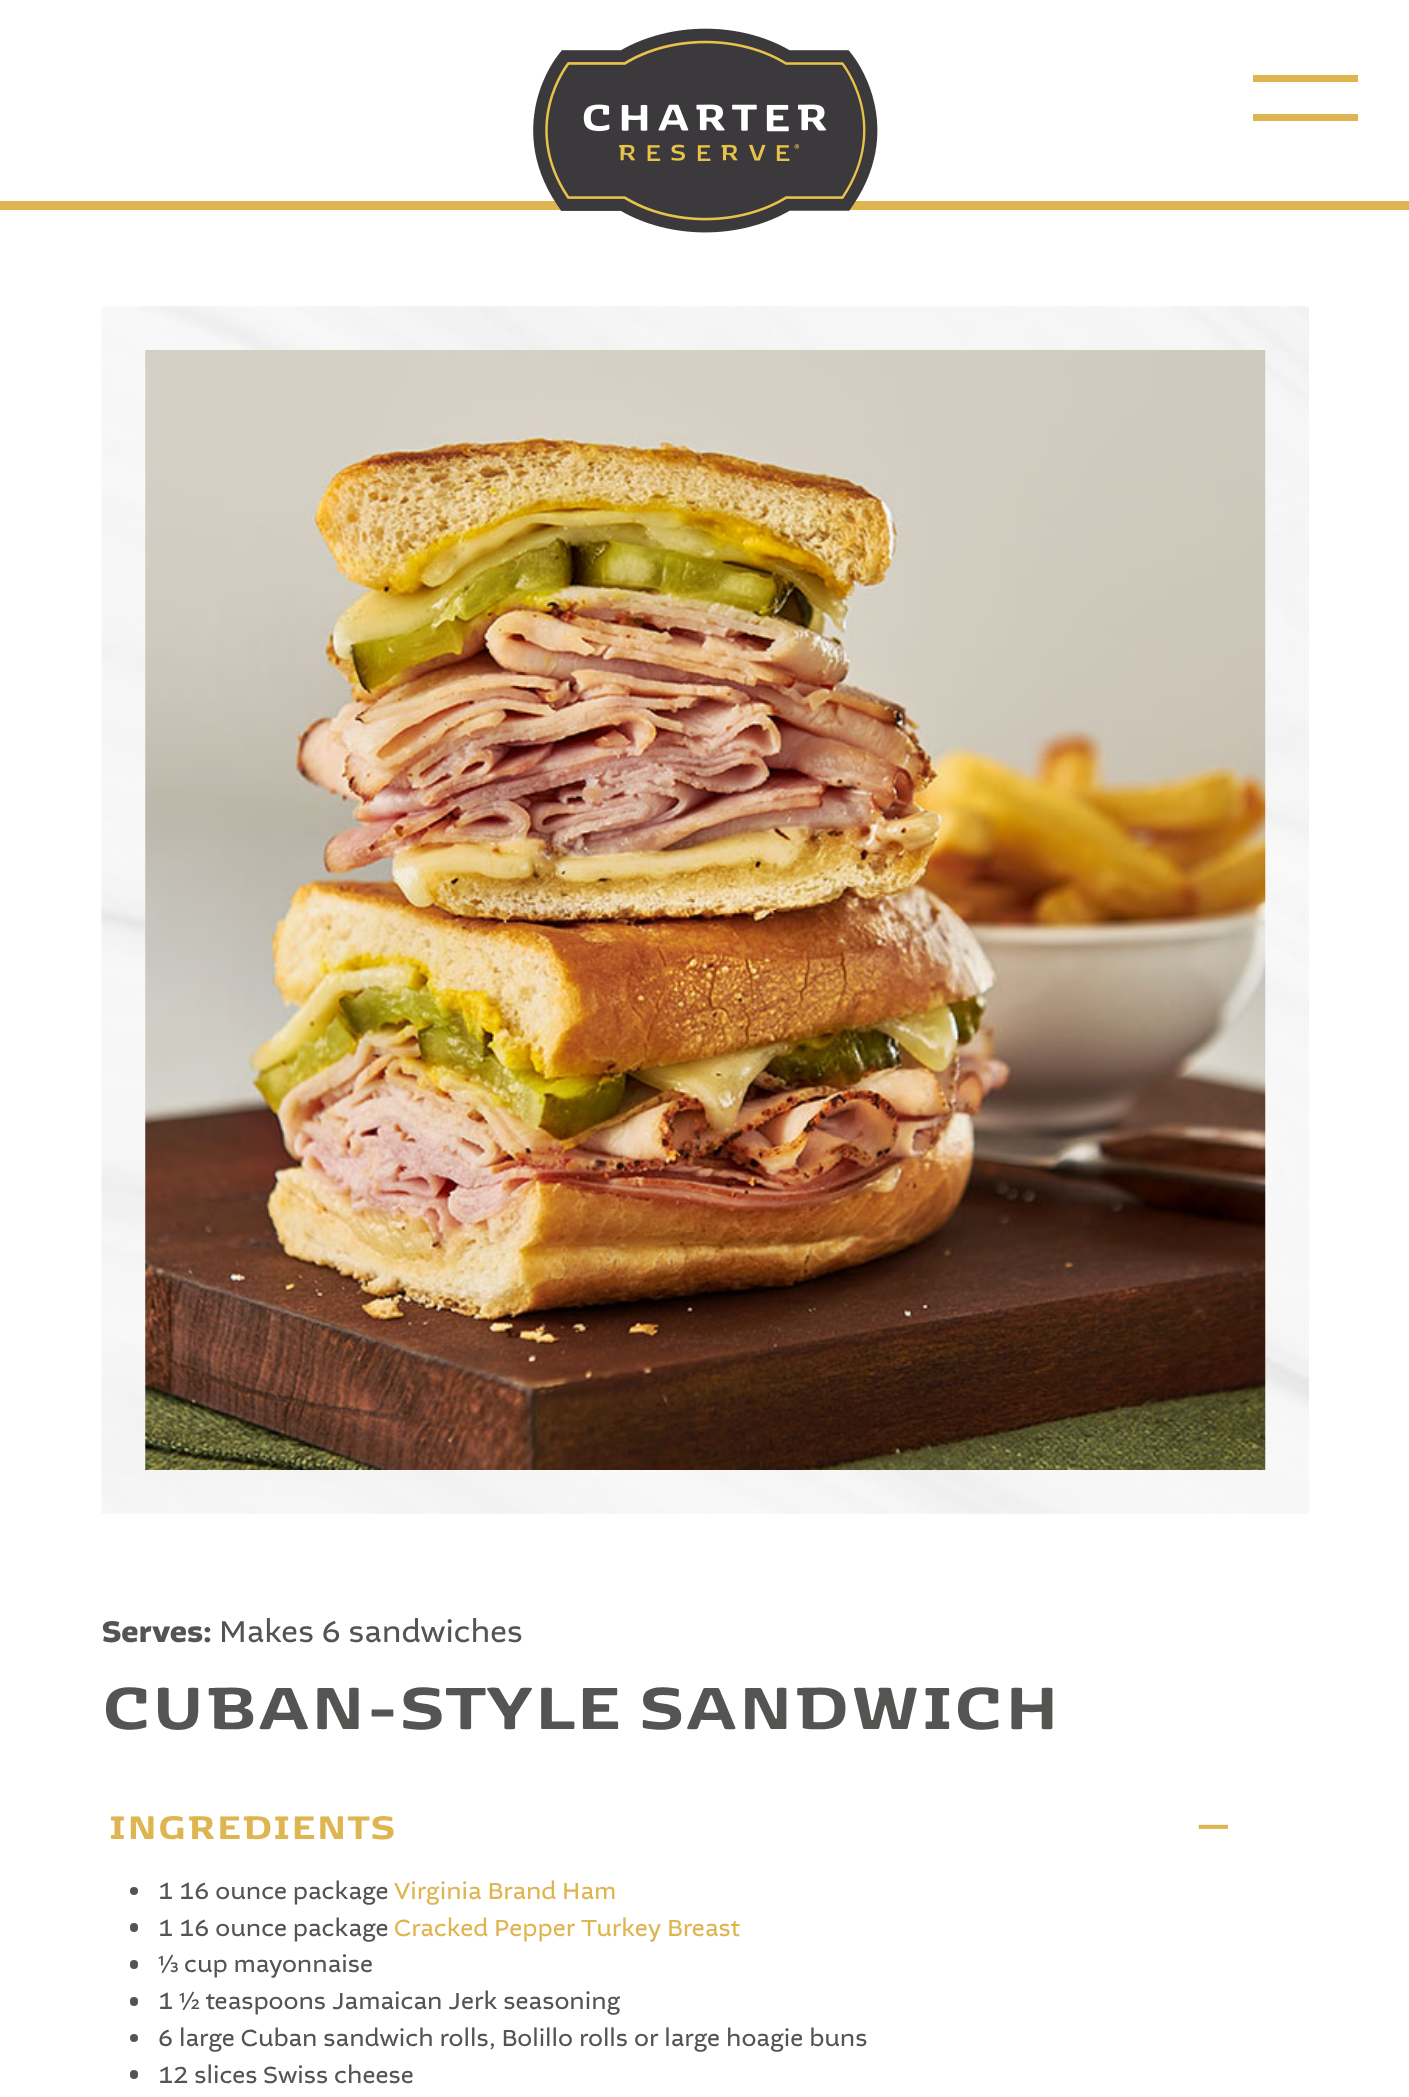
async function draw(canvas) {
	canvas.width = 1409;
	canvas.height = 2097;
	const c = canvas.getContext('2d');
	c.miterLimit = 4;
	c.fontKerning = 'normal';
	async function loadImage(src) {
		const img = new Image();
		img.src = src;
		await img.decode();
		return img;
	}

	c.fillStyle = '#fff';
	c.fillRect(0, 0, 1409, 2097);
	c.fillStyle = '#deb550';
	c.fillRect(0, 201, 1409, 9);
	c.drawImage(await loadImage('img1.png'), 533, 28, 345, 205);
	c.fillRect(1253, 75, 105, 7);
	c.fillRect(1253, 114, 105, 7);
	c.drawImage(await loadImage('img2.png'), 101, 306, 1208, 1208);
	c.drawImage(await loadImage('img3.png'), 145, 350, 1121, 1120);
	c.font = 'bold 31.5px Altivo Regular';
	c.fillStyle = '#545452';
	c.fillText('Serves:', 102, 1642);
	c.font = '31.5px Altivo Regular';
	c.fillText('Makes 6 sandwiches', 219, 1642);
	c.letterSpacing = '2.1px';
	c.font = '800 70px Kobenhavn';
	c.fillText('CUBAN-STYLE SANDWICH', 102, 1729);
	c.letterSpacing = '1.25px';
	c.font = '800 38.5px Kobenhavn';
	c.fillStyle = '#deb550';
	c.fillText('INGREDIENTS', 109, 1839);
	c.letterSpacing = '0px';
	c.font = '56px Altivo Regular';
	c.fillText('–', 1196, 1843);
	c.fillStyle = '#545452';
	c.beginPath();
	c.arc(134, 1891, 4, 0, 2 * Math.PI);
	c.fill();
	c.font = '24.5px Altivo Regular';
	c.fillText('1 16 ounce package', 158, 1899);
	c.fillStyle = '#deb550';
	c.fillText('Virginia Brand Ham', 394, 1899);
	c.fillStyle = '#545452';
	c.beginPath();
	c.roundRect(130, 1923, 8, 9, 4);
	c.fill();
	c.fillText('1 16 ounce package', 158, 1936);
	c.fillStyle = '#deb550';
	c.fillText('Cracked Pepper Turkey Breast', 394, 1936);
	c.fillStyle = '#545452';
	c.beginPath();
	c.roundRect(130, 1960, 8, 9, 4);
	c.fill();
	c.font = '24.5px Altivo';
	c.fillText('⅓', 158, 1972);
	c.font = '24.5px Altivo Regular';
	c.fillText('cup mayonnaise', 184, 1972);
	c.beginPath();
	c.roundRect(130, 1997, 8, 9, 4);
	c.fill();
	c.fillText('1 ½ teaspoons Jamaican Jerk seasoning', 158, 2009);
	c.beginPath();
	c.arc(134, 2038, 4, 0, 2 * Math.PI);
	c.fill();
	c.fillText('6 large Cuban sandwich rolls, Bolillo rolls or large hoagie buns', 158, 2046);
	c.beginPath();
	c.roundRect(130, 2070, 8, 9, 4);
	c.fill();
	c.fillText('12 slices Swiss cheese', 158, 2083);
}

draw(document.querySelector('canvas'));
